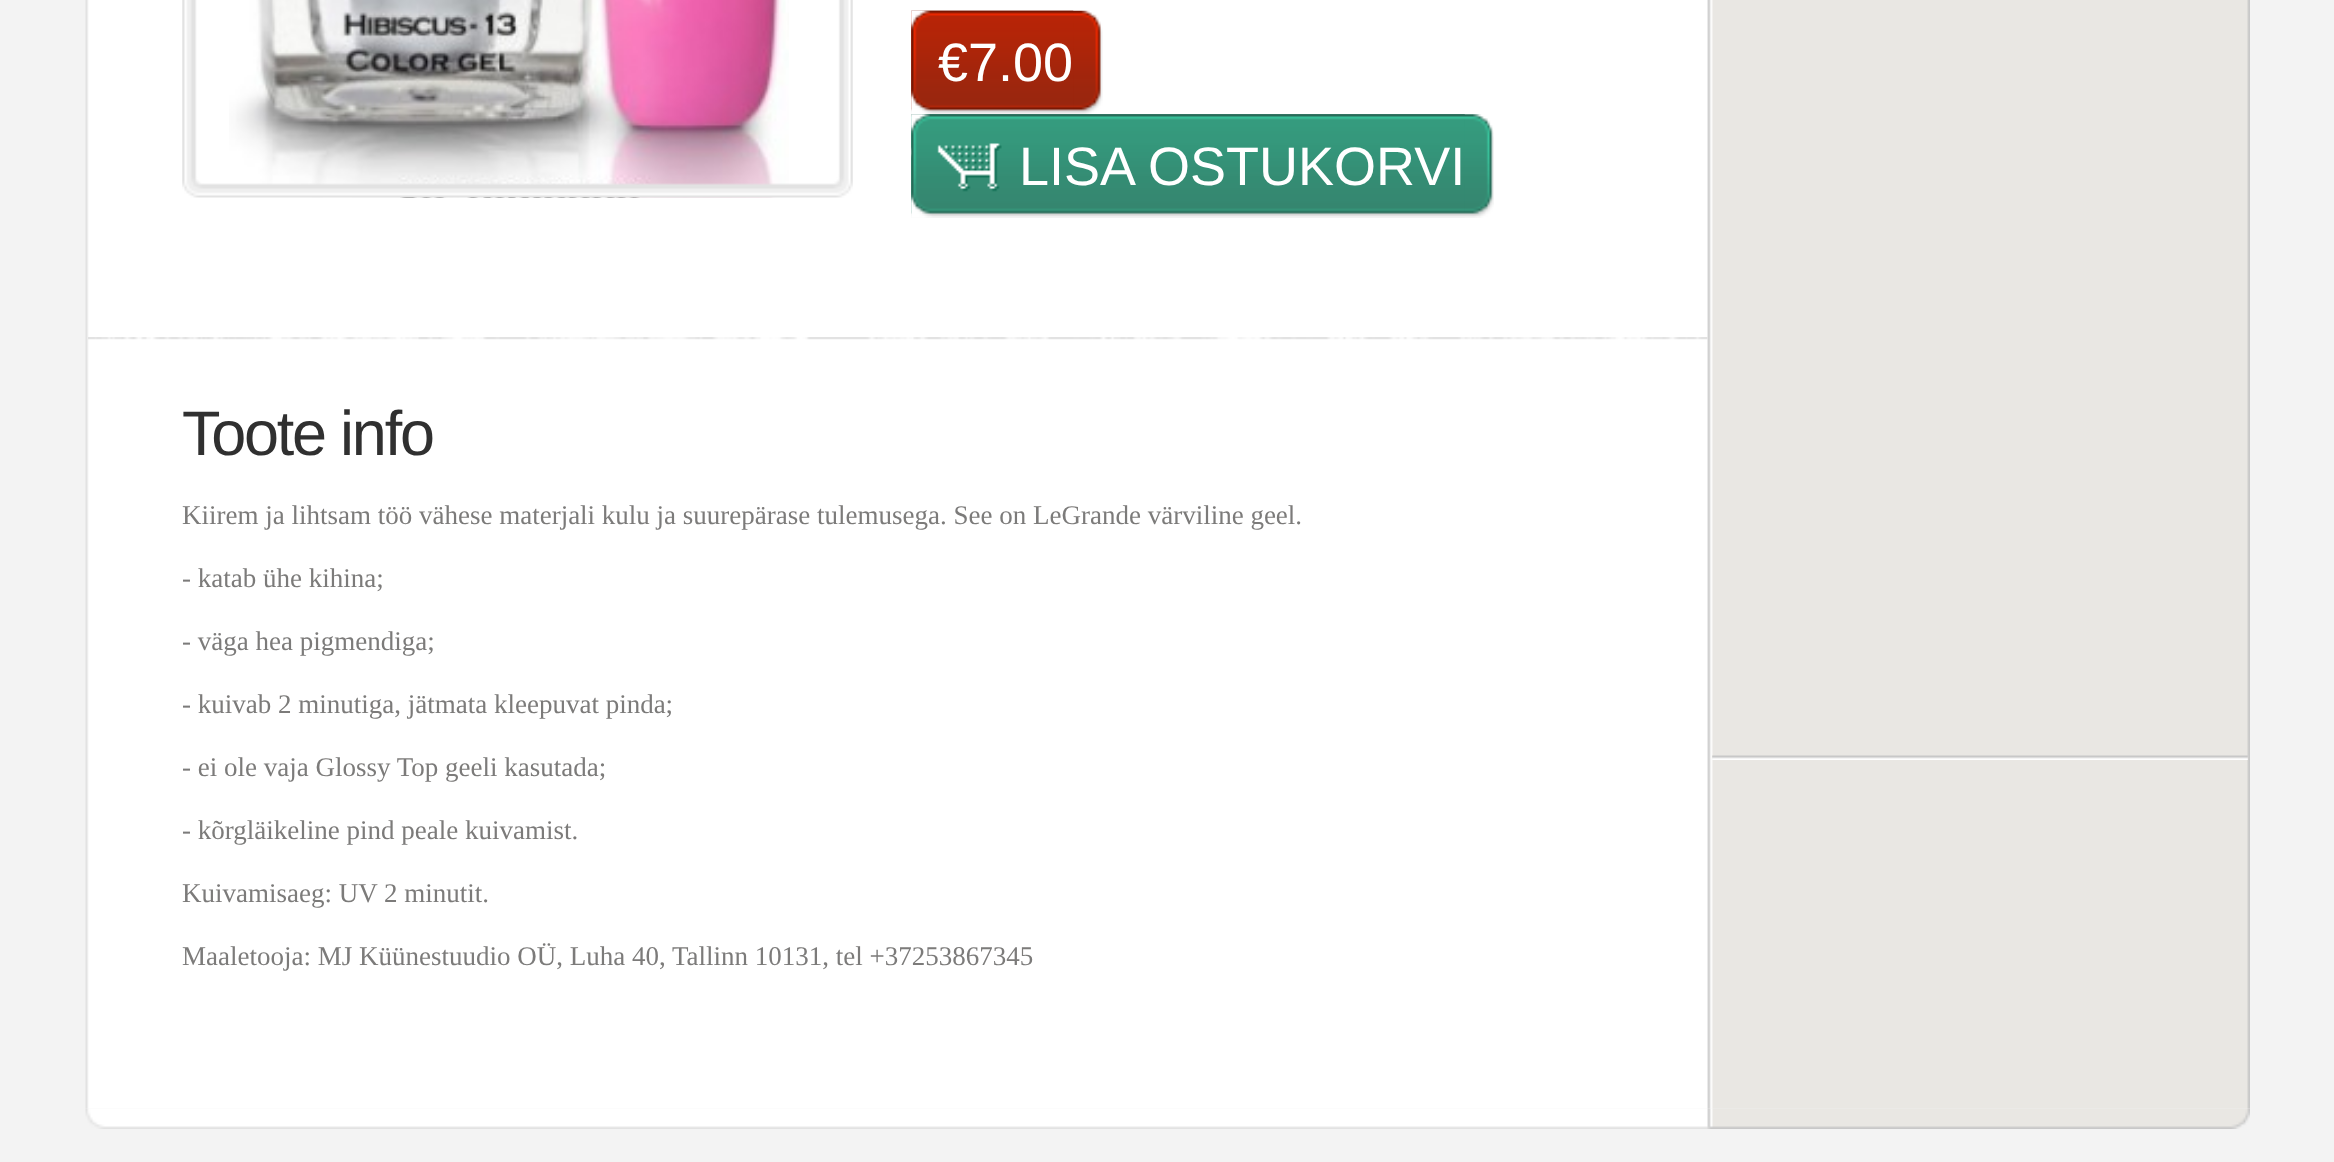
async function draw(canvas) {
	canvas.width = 2334;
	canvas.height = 1162;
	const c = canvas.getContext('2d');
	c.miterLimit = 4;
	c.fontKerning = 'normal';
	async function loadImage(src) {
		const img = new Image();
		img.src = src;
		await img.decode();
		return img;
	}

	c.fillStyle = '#f3f3f3';
	c.fillRect(0, 0, 2334, 1162);
	c.drawImage(await loadImage('img1.png'), 85, 0, 2165, 1109);
	c.drawImage(await loadImage('img3.png'), 229, 0, 560, 198);
	c.drawImage(await loadImage('img2.png'), 182, 0, 671, 198);
	c.drawImage(await loadImage('img4.png'), 911, 10, 192, 105);
	c.drawImage(await loadImage('img5.png'), 911, 10, 163, 104);
	c.font = '54px Liberation Sans';
	c.fillStyle = '#fff';
	c.fillText('€7.00', 938, 81);
	c.drawImage(await loadImage('img6.png'), 911, 114, 583, 104);
	c.drawImage(await loadImage('img7.png'), 911, 114, 554, 104);
	c.fillText('LISA OSTUKORVI', 1019, 185);
	c.drawImage(await loadImage('img8.png'), 88, 337, 1620, 3);
	c.letterSpacing = '-2.25px';
	c.font = '63px Liberation Sans';
	c.fillStyle = '#303030';
	c.fillText('Toote info', 182, 455);
	c.letterSpacing = '0px';
	c.font = '27px Liberation Serif';
	c.fillStyle = '#7c7b7a';
	for (const [text, x, y] of [
		['Kiirem ja lihtsam töö vähese materjali kulu ja suurepärase tulemusega. See on LeGrande värviline geel.', 182, 524],
		['- katab ühe kihina;', 182, 587],
		['- väga hea pigmendiga;', 182, 650],
		['- kuivab 2 minutiga, jätmata kleepuvat pinda;', 182, 713],
		['- ei ole vaja Glossy Top geeli kasutada;', 182, 776],
		['- kõrgläikeline pind peale kuivamist.', 182, 839],
		['Kuivamisaeg: UV 2 minutit.', 182, 902],
		['Maaletooja: MJ Küünestuudio OÜ, Luha 40, Tallinn 10131, tel +37253867345', 182, 965],
	]) {
		c.fillText(text, x, y);
	}
	c.drawImage(await loadImage('img9.png'), 1712, 755, 536, 5);
	c.drawImage(await loadImage('img10.png'), 85, 1109, 2165, 20);
}

draw(document.querySelector('canvas'));
